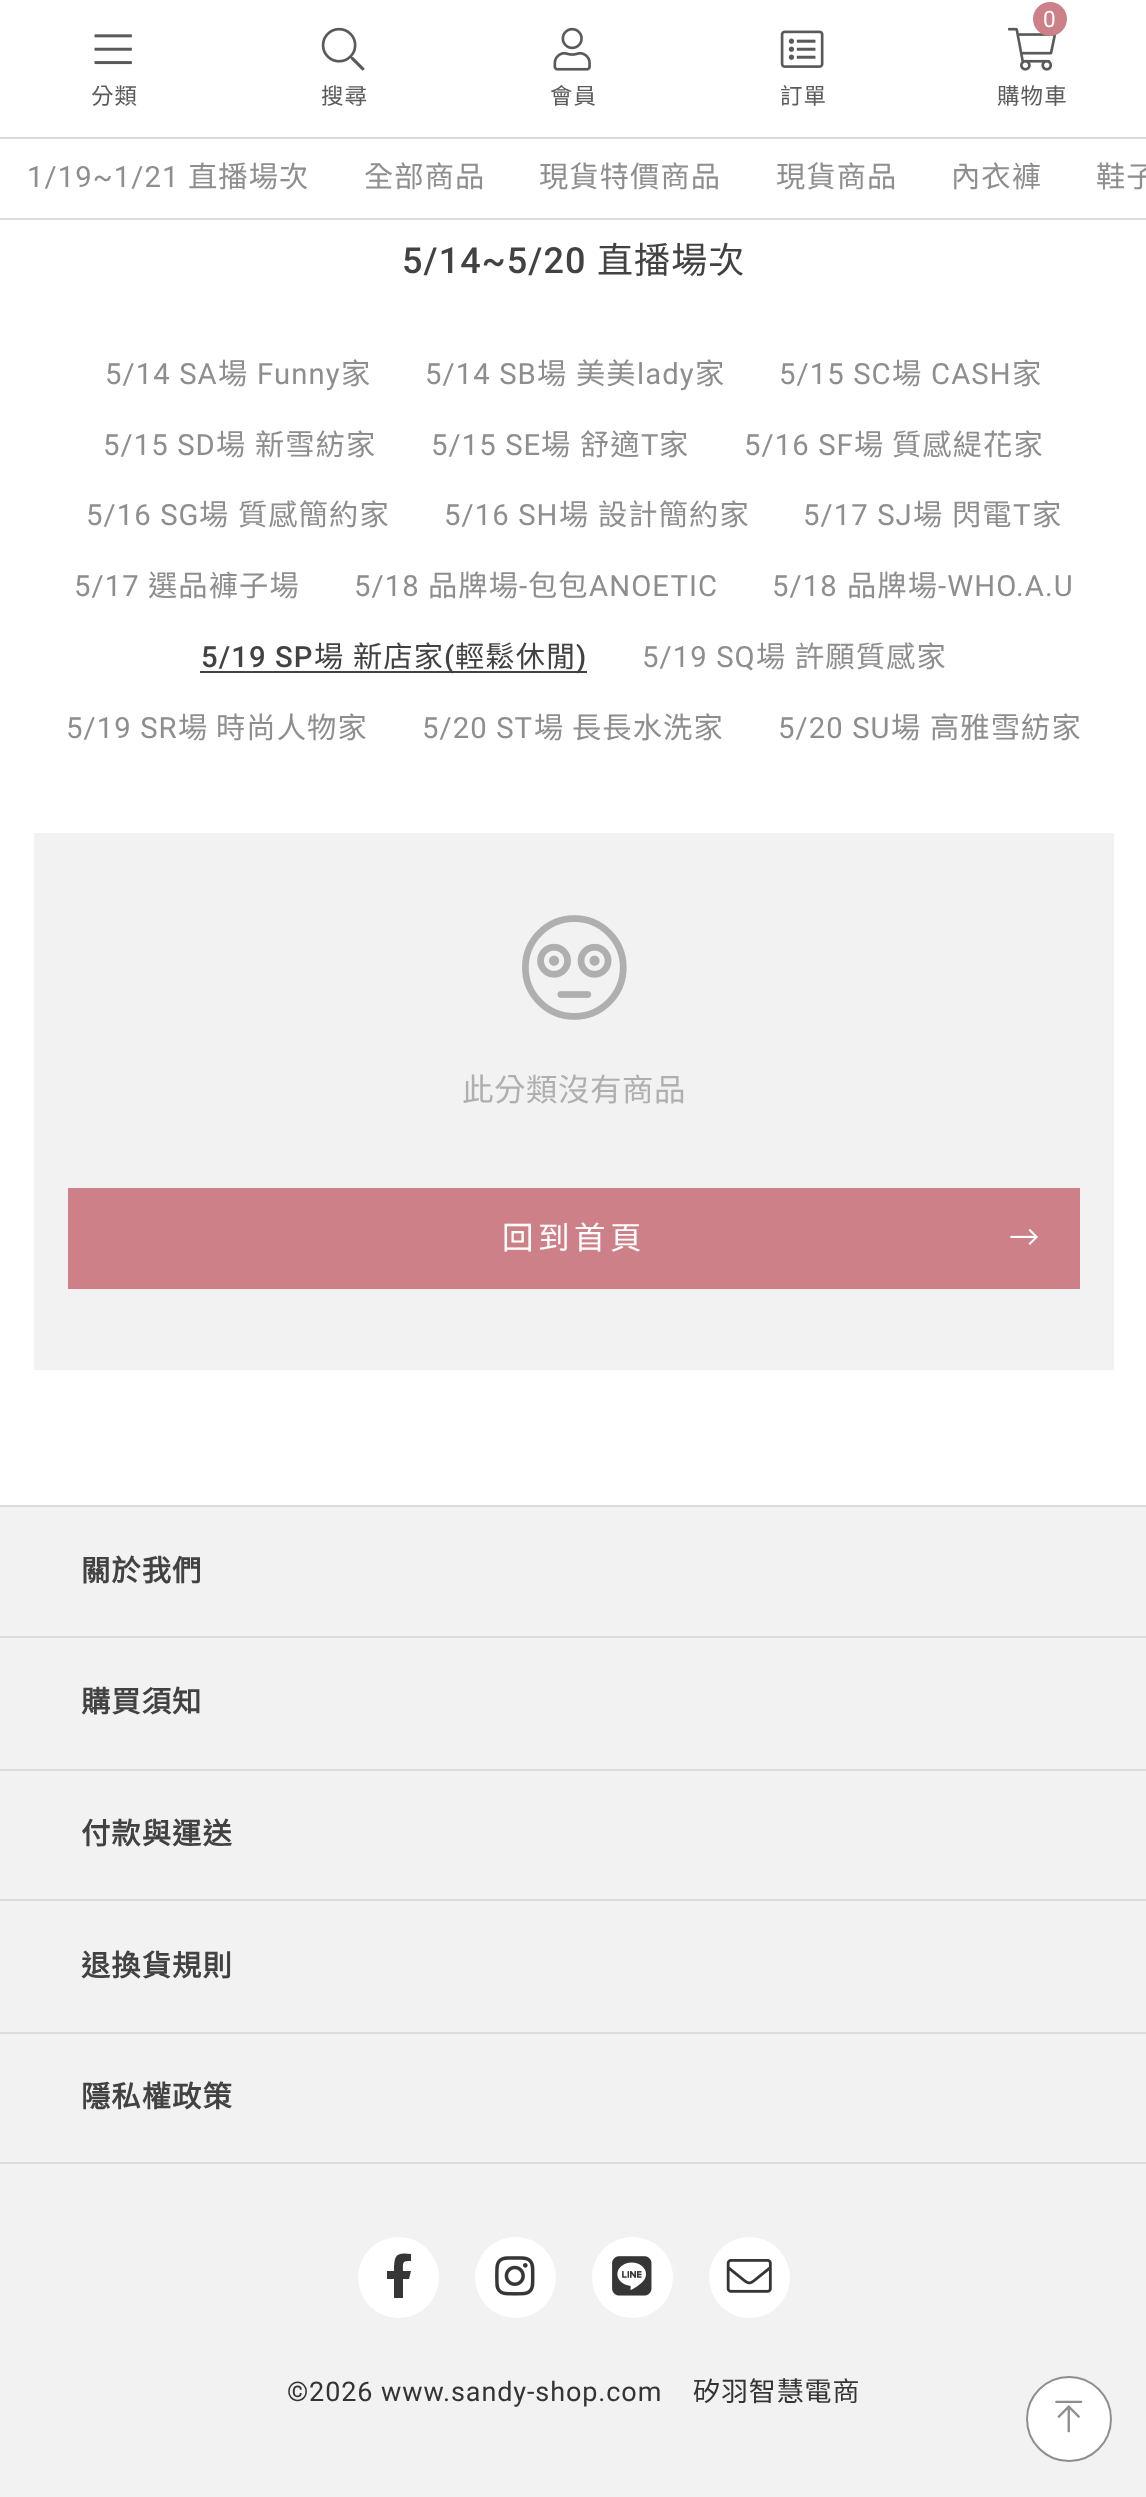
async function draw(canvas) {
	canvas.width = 1146;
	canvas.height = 2497;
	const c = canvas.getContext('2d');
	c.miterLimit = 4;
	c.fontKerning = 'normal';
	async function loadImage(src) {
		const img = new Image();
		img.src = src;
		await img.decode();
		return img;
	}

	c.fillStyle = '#fff';
	c.fillRect(0, 0, 1146, 2497);
	c.fillStyle = '#dbdbdb';
	c.fillRect(0, 137, 1146, 2);
	c.drawImage(await loadImage('img1.png'), 94, 34, 38, 31);
	c.letterSpacing = '1.1px';
	c.font = '22.5px Noto Sans CJK TC';
	c.fillStyle = '#5b5b5b';
	c.fillText('分類', 91, 104);
	c.drawImage(await loadImage('img2.png'), 321, 27, 44, 44);
	c.fillText('搜尋', 321, 104);
	c.drawImage(await loadImage('img3.png'), 553, 27, 38, 44);
	c.fillText('會員', 550, 104);
	c.drawImage(await loadImage('img4.png'), 780, 30, 44, 38);
	c.fillText('訂單', 780, 104);
	c.drawImage(await loadImage('img5.png'), 1008, 27, 48, 44);
	c.fillStyle = '#cd8088';
	c.beginPath();
	c.arc(1050, 19, 17, 0, 2 * Math.PI);
	c.fill();
	c.font = '22.5px Roboto';
	c.fillStyle = '#fff';
	c.fillText('0', 1043, 27);
	c.font = '22.5px Noto Sans CJK TC';
	c.fillStyle = '#5b5b5b';
	c.fillText('購物車', 997, 104);
	c.fillStyle = '#dbdbdb';
	c.fillRect(0, 218, 1146, 2);
	c.font = '29.25px Roboto';
	c.fillStyle = '#8e8e8e';
	c.fillText('1/19~1/21', 27, 187);
	c.font = '29.25px Noto Sans CJK TC';
	for (const [text, x, y] of [
		['直播場次', 188, 187],
		['全部商品', 364, 187],
		['現貨特價商品', 539, 187],
		['現貨商品', 776, 187],
		['內衣褲', 951, 187],
		['鞋子', 1096, 187],
	]) {
		c.fillText(text, x, y);
	}
	c.font = '500 36px Roboto';
	c.fillStyle = '#424242';
	c.fillText('5/14~5/20', 402, 273);
	c.font = '36px Noto Sans CJK TC';
	c.fillText('直播場次', 597, 273);
	c.font = '29.25px Roboto';
	c.fillStyle = '#8e8e8e';
	c.fillText('5/14 SA', 105, 384);
	c.font = '29.25px Noto Sans CJK TC';
	c.fillText('場', 218, 384);
	c.font = '29.25px Roboto';
	c.fillText('Funny', 257, 384);
	c.font = '29.25px Noto Sans CJK TC';
	c.fillText('家', 341, 384);
	c.font = '29.25px Roboto';
	c.fillText('5/14 SB', 425, 384);
	c.font = '29.25px Noto Sans CJK TC';
	c.fillText('場', 537, 384);
	c.fillText('美美', 576, 384);
	c.font = '29.25px Roboto';
	c.fillText('lady', 637, 384);
	c.font = '29.25px Noto Sans CJK TC';
	c.fillText('家', 695, 384);
	c.font = '29.25px Roboto';
	c.fillText('5/15 SC', 779, 384);
	c.font = '29.25px Noto Sans CJK TC';
	c.fillText('場', 892, 384);
	c.font = '29.25px Roboto';
	c.fillText('CASH', 931, 384);
	c.font = '29.25px Noto Sans CJK TC';
	c.fillText('家', 1012, 384);
	c.font = '29.25px Roboto';
	c.fillText('5/15 SD', 103, 455);
	c.font = '29.25px Noto Sans CJK TC';
	c.fillText('場', 216, 455);
	c.fillText('新雪紡家', 255, 455);
	c.font = '29.25px Roboto';
	c.fillText('5/15 SE', 431, 455);
	c.font = '29.25px Noto Sans CJK TC';
	c.fillText('場', 541, 455);
	c.fillText('舒適', 580, 455);
	c.font = '29.25px Roboto';
	c.fillText('T', 641, 455);
	c.font = '29.25px Noto Sans CJK TC';
	c.fillText('家', 659, 455);
	c.font = '29.25px Roboto';
	c.fillText('5/16 SF', 744, 455);
	c.font = '29.25px Noto Sans CJK TC';
	c.fillText('場', 854, 455);
	c.fillText('質感緹花家', 892, 455);
	c.font = '29.25px Roboto';
	c.fillText('5/16 SG', 86, 525);
	c.font = '29.25px Noto Sans CJK TC';
	c.fillText('場', 199, 525);
	c.fillText('質感簡約家', 238, 525);
	c.font = '29.25px Roboto';
	c.fillText('5/16 SH', 444, 525);
	c.font = '29.25px Noto Sans CJK TC';
	c.fillText('場', 559, 525);
	c.fillText('設計簡約家', 598, 525);
	c.font = '29.25px Roboto';
	c.fillText('5/17 SJ', 803, 525);
	c.font = '29.25px Noto Sans CJK TC';
	c.fillText('場', 913, 525);
	c.fillText('閃電', 952, 525);
	c.font = '29.25px Roboto';
	c.fillText('T', 1013, 525);
	c.font = '29.25px Noto Sans CJK TC';
	c.fillText('家', 1032, 525);
	c.font = '29.25px Roboto';
	c.fillText('5/17', 74, 596);
	c.font = '29.25px Noto Sans CJK TC';
	c.fillText('選品褲子場', 148, 596);
	c.font = '29.25px Roboto';
	c.fillText('5/18', 354, 596);
	c.font = '29.25px Noto Sans CJK TC';
	c.fillText('品牌場', 428, 596);
	c.font = '29.25px Roboto';
	c.fillText('-', 519, 596);
	c.font = '29.25px Noto Sans CJK TC';
	c.fillText('包包', 528, 596);
	c.font = '29.25px Roboto';
	c.fillText('ANOETIC', 589, 596);
	c.fillText('5/18', 772, 596);
	c.font = '29.25px Noto Sans CJK TC';
	c.fillText('品牌場', 847, 596);
	c.font = '29.25px Roboto';
	c.fillText('-WHO.A.U', 938, 596);
	c.font = '500 29.25px Roboto';
	c.fillStyle = '#424242';
	c.fillText('5/19 SP', 201, 667);
	c.font = '29.25px Noto Sans CJK TC';
	c.fillText('場', 314, 667);
	c.fillText('新店家', 353, 667);
	c.fillRect(200, 671, 387, 2);
	c.font = '500 29.25px Roboto';
	c.fillText('(', 444, 667);
	c.font = '29.25px Noto Sans CJK TC';
	c.fillText('輕鬆休閒', 455, 667);
	c.font = '500 29.25px Roboto';
	c.fillText(')', 576, 667);
	c.font = '29.25px Roboto';
	c.fillStyle = '#8e8e8e';
	c.fillText('5/19 SQ', 642, 667);
	c.font = '29.25px Noto Sans CJK TC';
	c.fillText('場', 756, 667);
	c.fillText('許願質感家', 795, 667);
	c.font = '29.25px Roboto';
	c.fillText('5/19 SR', 66, 738);
	c.font = '29.25px Noto Sans CJK TC';
	c.fillText('場', 178, 738);
	c.fillText('時尚人物家', 216, 738);
	c.font = '29.25px Roboto';
	c.fillText('5/20 ST', 422, 738);
	c.font = '29.25px Noto Sans CJK TC';
	c.fillText('場', 534, 738);
	c.fillText('長長水洗家', 572, 738);
	c.font = '29.25px Roboto';
	c.fillText('5/20 SU', 778, 738);
	c.font = '29.25px Noto Sans CJK TC';
	c.fillText('場', 891, 738);
	c.fillText('高雅雪紡家', 930, 738);
	c.fillStyle = '#f2f2f2';
	c.fillRect(34, 833, 1080, 537);
	c.drawImage(await loadImage('img6.png'), 522, 915, 105, 105);
	c.letterSpacing = '0.5px';
	c.font = '31.5px Noto Sans CJK TC';
	c.fillStyle = '#afafaf';
	c.fillText('此分類沒有商品', 462, 1101);
	c.fillStyle = '#cd8088';
	c.fillRect(68, 1188, 1012, 101);
	c.letterSpacing = '4.5px';
	c.fillStyle = '#fff';
	c.fillText('回到首頁', 502, 1249);
	c.drawImage(await loadImage('img7.png'), 1010, 1229, 28, 16);
	c.fillStyle = '#f2f2f2';
	c.fillRect(0, 1507, 1146, 990);
	c.fillStyle = '#dbdbdb';
	c.fillRect(0, 1505, 1146, 2);
	c.letterSpacing = '1.1px';
	c.font = 'bold 29.25px Noto Sans CJK TC';
	c.fillStyle = '#424242';
	c.fillText('關於我們', 81, 1581);
	c.fillStyle = '#dbdbdb';
	c.fillRect(0, 1636, 1146, 2);
	c.fillStyle = '#424242';
	c.fillText('購買須知', 81, 1712);
	c.fillStyle = '#dbdbdb';
	c.fillRect(0, 1769, 1146, 2);
	c.fillStyle = '#424242';
	c.fillText('付款與運送', 81, 1844);
	c.fillStyle = '#dbdbdb';
	c.fillRect(0, 1899, 1146, 2);
	c.fillStyle = '#424242';
	c.fillText('退換貨規則', 81, 1976);
	c.fillStyle = '#dbdbdb';
	c.fillRect(0, 2032, 1146, 2);
	c.fillRect(0, 2162, 1146, 2);
	c.fillStyle = '#424242';
	c.fillText('隱私權政策', 81, 2107);
	c.fillStyle = '#fff';
	c.beginPath();
	c.arc(398.5, 2277.5, 40.5, 0, 2 * Math.PI);
	c.fill();
	c.fillStyle = '#373636';
	c.beginPath();
	c.moveTo(409, 2279);
	c.lineTo(403, 2279);
	c.lineTo(403, 2298);
	c.lineTo(394, 2298);
	c.lineTo(394, 2279);
	c.lineTo(387, 2279);
	c.lineTo(387, 2271);
	c.lineTo(394, 2271);
	c.bezierCurveTo(394, 2255, 396, 2252, 411, 2254);
	c.lineTo(411, 2261);
	c.bezierCurveTo(402, 2261, 403, 2262, 403, 2271);
	c.lineTo(411, 2271);
	c.closePath();
	c.fill();
	c.fillStyle = '#fff';
	c.beginPath();
	c.arc(515.5, 2277.5, 40.5, 0, 2 * Math.PI);
	c.fill();
	c.drawImage(await loadImage('img8.png'), 495, 2256, 40, 40);
	c.beginPath();
	c.arc(632.5, 2277.5, 40.5, 0, 2 * Math.PI);
	c.fill();
	c.drawImage(await loadImage('img9.png'), 612, 2256, 40, 40);
	c.beginPath();
	c.arc(749.5, 2277.5, 40.5, 0, 2 * Math.PI);
	c.fill();
	c.drawImage(await loadImage('img10.png'), 726, 2259, 46, 34);
	c.letterSpacing = '0.9px';
	c.font = '27px Roboto';
	c.fillStyle = '#353434';
	c.fillText('©2026 www.sandy-shop.com', 287, 2401);
	c.font = '27px Noto Sans CJK TC';
	c.fillText('矽羽智慧電商', 693, 2401);
	c.fillStyle = '#fff';
	c.beginPath();
	c.arc(1069, 2419, 43, 0, 2 * Math.PI);
	c.fill();
	c.beginPath();
	c.arc(1069, 2419, 42, 0, 2 * Math.PI);
	c.strokeStyle = '#42424299';
	c.lineWidth = 2;
	c.stroke();
	c.drawImage(await loadImage('img11.png'), 1055, 2400, 28, 33);
}

draw(document.querySelector('canvas'));
